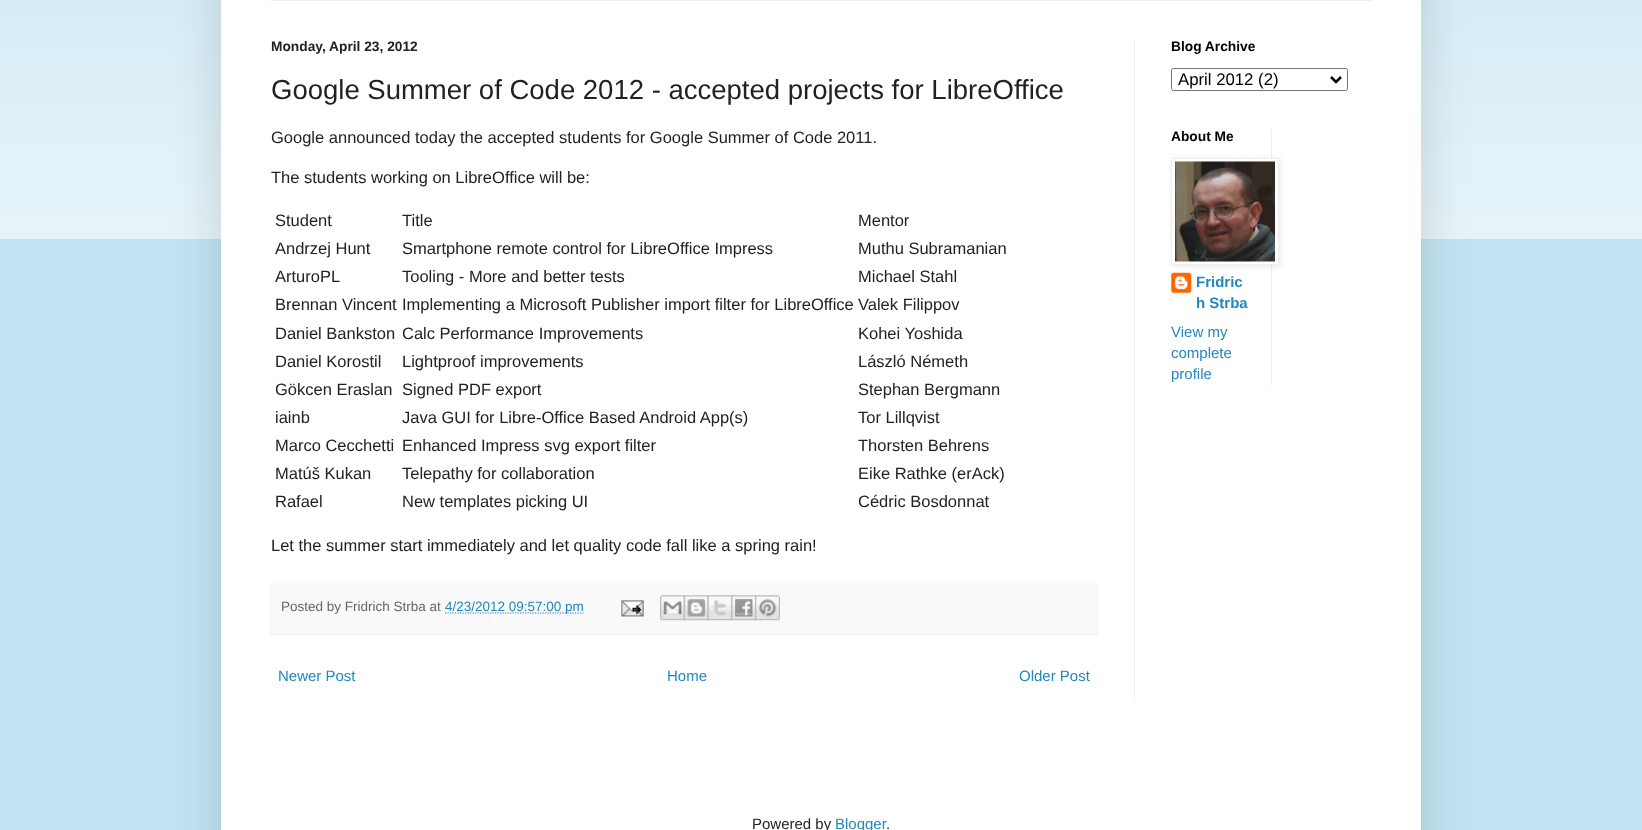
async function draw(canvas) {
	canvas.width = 1642;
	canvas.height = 830;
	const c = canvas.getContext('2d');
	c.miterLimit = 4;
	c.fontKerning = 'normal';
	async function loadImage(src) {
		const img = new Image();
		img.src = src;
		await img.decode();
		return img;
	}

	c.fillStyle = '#c2e4f2';
	c.fillRect(0, 0, 1642, 830);
	c.drawImage(await loadImage('img1.png'), 0, 0, 1642, 239);
	c.fillStyle = '#00000026';
	c.filter = 'blur(25px)';
	c.beginPath();
	c.rect(221, -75, 1200, 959);
	c.fill();
	c.filter = 'none';
	for (const [x, y, w, h, color] of [
		[221, 0, 1200, 830, '#fff'],
		[271, 0, 1100, 1, '#eee'],
		[1134, 39, 1, 662, '#eee'],
	]) {
		c.fillStyle = color;
		c.fillRect(x, y, w, h);
	}
	c.font = 'bold 13.75px Liberation Sans';
	c.fillStyle = '#222';
	c.fillText('Monday, April 23, 2012', 271, 51);
	c.font = '27.5px Liberation Sans';
	c.fillText('Google Summer of Code 2012 - accepted projects for LibreOffice', 271, 99);
	c.font = '16.5px Liberation Sans';
	for (const [text, x, y] of [
		['Google announced today the accepted students for Google Summer of Code 2011.', 271, 143],
		['The students working on LibreOffice will be:', 271, 183],
		['Student', 275, 226],
		['Title', 402, 226],
		['Mentor', 858, 226],
		['Andrzej Hunt', 275, 254],
		['Smartphone remote control for LibreOffice Impress', 402, 254],
		['Muthu Subramanian', 858, 254],
		['ArturoPL', 275, 282],
		['Tooling - More and better tests', 402, 282],
		['Michael Stahl', 858, 282],
		['Brennan Vincent', 275, 310],
		['Implementing a Microsoft Publisher import filter for LibreOffice', 402, 310],
		['Valek Filippov', 858, 310],
		['Daniel Bankston', 275, 339],
		['Calc Performance Improvements', 402, 339],
		['Kohei Yoshida', 858, 339],
		['Daniel Korostil', 275, 367],
		['Lightproof improvements', 402, 367],
		['László Németh', 858, 367],
		['Gökcen Eraslan', 275, 395],
		['Signed PDF export', 402, 395],
		['Stephan Bergmann', 858, 395],
		['iainb', 275, 423],
		['Java GUI for Libre-Office Based Android App(s)', 402, 423],
		['Tor Lillqvist', 858, 423],
		['Marco Cecchetti', 275, 451],
		['Enhanced Impress svg export filter', 402, 451],
		['Thorsten Behrens', 858, 451],
		['Matúš Kukan', 275, 479],
		['Telepathy for collaboration', 402, 479],
		['Eike Rathke (erAck)', 858, 479],
		['Rafael', 275, 507],
		['New templates picking UI', 402, 507],
		['Cédric Bosdonnat', 858, 507],
		['Let the summer start immediately and let quality code fall like a spring rain!', 271, 551],
	]) {
		c.fillText(text, x, y);
	}
	c.fillStyle = '#f9f9f9';
	c.fillRect(269, 583, 830, 51);
	c.fillStyle = '#eee';
	c.fillRect(269, 634, 830, 1);
	c.font = '13.5px Liberation Sans';
	c.fillStyle = '#666';
	c.fillText('Posted by Fridrich Strba at', 281, 611);
	c.beginPath();
	c.moveTo(445, 613);
	c.lineTo(583.5, 613);
	c.strokeStyle = '#28b';
	c.lineWidth = 1.2;
	c.setLineDash([1.25, 1.25]);
	c.stroke();
	c.fillStyle = '#28b';
	c.fillText('4/23/2012 09:57:00 pm', 445, 611);
	c.drawImage(await loadImage('img2.png'), 621, 600, 23, 17);
	c.drawImage(await loadImage('img3.png'), 660, 595, 25, 26);
	c.drawImage(await loadImage('img4.png'), 683, 595, 26, 26);
	c.drawImage(await loadImage('img5.png'), 707, 595, 26, 26);
	c.drawImage(await loadImage('img6.png'), 731, 595, 26, 26);
	c.drawImage(await loadImage('img7.png'), 755, 595, 25, 26);
	c.font = '15px Liberation Sans';
	for (const [text, x, y] of [
		['Newer Post', 278, 681],
		['Home', 667, 681],
		['Older Post', 1019, 681],
	]) {
		c.fillText(text, x, y);
	}
	c.font = 'bold 13.75px Liberation Sans';
	c.fillStyle = '#000';
	c.fillText('Blog Archive', 1171, 51);
	c.beginPath();
	c.roundRect(1171.5, 68.5, 176, 22, 2);
	c.strokeStyle = '#767676';
	c.lineWidth = 1;
	c.setLineDash([]);
	c.stroke();
	c.beginPath();
	c.moveTo(1331, 77);
	c.lineTo(1336, 82);
	c.lineTo(1341, 77);
	c.strokeStyle = '#000';
	c.lineWidth = 2.5;
	c.stroke();
	c.font = '16.75px Liberation Sans';
	c.fillText('April 2012 (2)', 1178, 85);
	c.font = 'bold 13.75px Liberation Sans';
	c.fillText('About Me', 1171, 141);
	c.drawImage(await loadImage('img9.png'), 1171, 272, 21, 21);
	c.fillStyle = '#eee';
	c.fillRect(1271, 129, 1, 256);
	c.fillStyle = '#0000001a';
	c.filter = 'blur(3px)';
	c.beginPath();
	c.rect(1173, 159, 107, 107);
	c.fill();
	c.filter = 'none';
	c.fillStyle = '#fff';
	c.beginPath();
	c.rect(1171.5, 158.5, 107, 106);
	c.fill();
	c.strokeStyle = '#eee';
	c.lineWidth = 1;
	c.stroke();
	c.drawImage(await loadImage('img8.png'), 1175, 161, 100, 101);
	c.font = 'bold 15px Liberation Sans';
	c.fillStyle = '#28b';
	c.fillText('Fridric', 1196, 287);
	c.fillText('h Strba', 1196, 308);
	c.font = '15px Liberation Sans';
	for (const [text, x, y] of [
		['View my', 1171, 337],
		['complete', 1171, 358],
		['profile', 1171, 379],
	]) {
		c.fillText(text, x, y);
	}
	c.fillStyle = '#222';
	c.fillText('Powered by', 752, 829);
	c.fillStyle = '#28b';
	c.fillText('Blogger', 835, 829);
	c.fillStyle = '#222';
	c.fillText('.', 886, 829);
}

draw(document.querySelector('canvas'));
